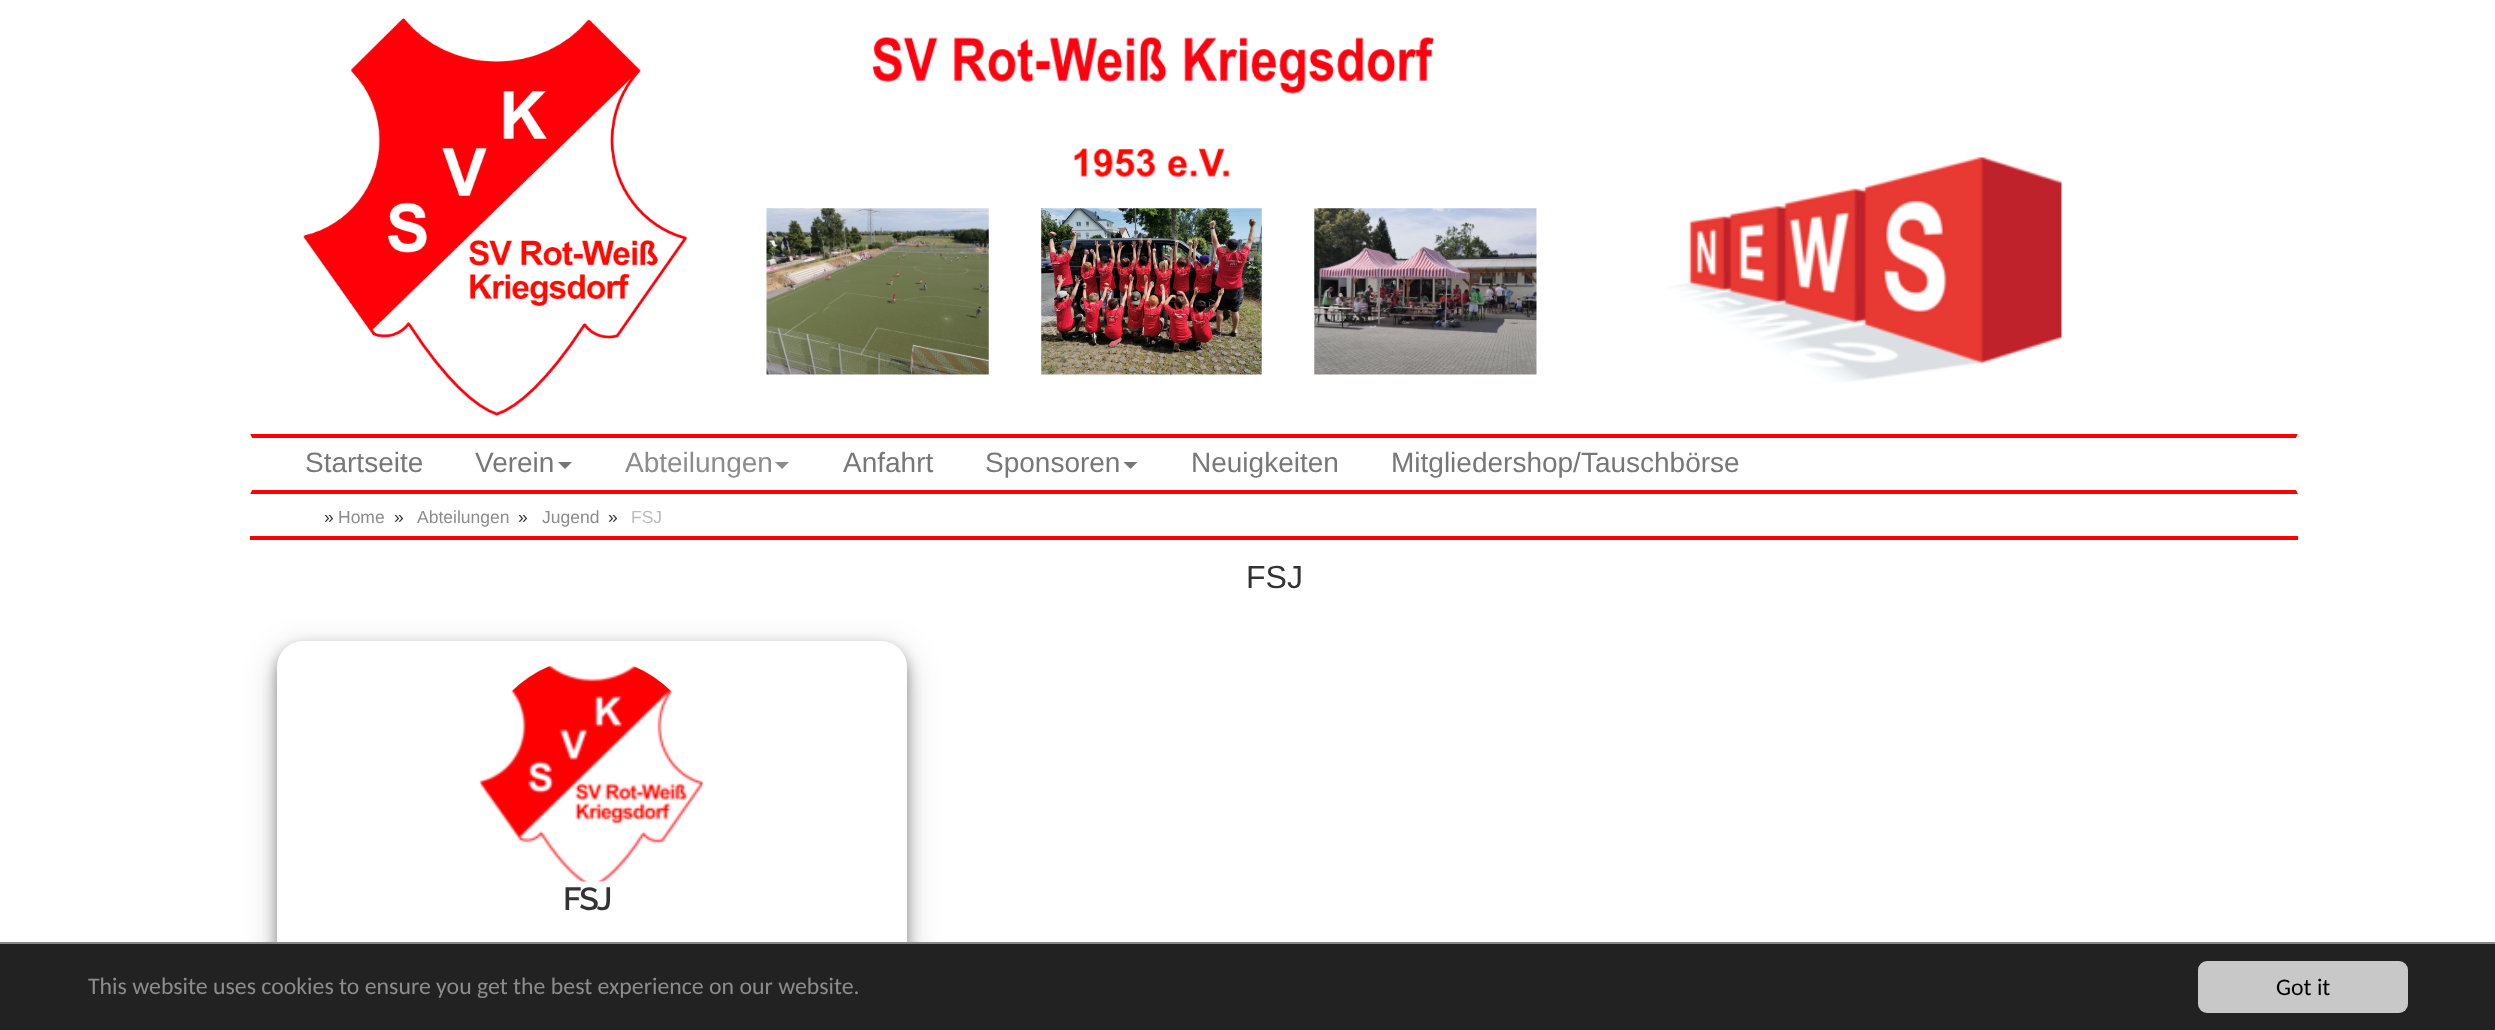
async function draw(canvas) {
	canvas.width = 2495;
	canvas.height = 1030;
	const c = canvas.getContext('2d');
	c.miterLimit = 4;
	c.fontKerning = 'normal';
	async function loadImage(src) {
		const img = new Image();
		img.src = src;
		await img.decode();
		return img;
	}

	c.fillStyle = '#fff';
	c.fillRect(0, 0, 2495, 1030);
	c.drawImage(await loadImage('img1.png'), 303, 18, 384, 398);
	c.drawImage(await loadImage('img2.png'), 872, 36, 563, 141);
	c.drawImage(await loadImage('img3.png'), 766, 208, 223, 167);
	c.drawImage(await loadImage('img4.png'), 1041, 208, 221, 167);
	c.drawImage(await loadImage('img5.png'), 1314, 208, 223, 167);
	c.drawImage(await loadImage('img6.png'), 1667, 157, 395, 226);
	c.fillStyle = '#f00';
	c.beginPath();
	c.moveTo(250, 434);
	c.lineTo(2298, 434);
	c.lineTo(2296, 438);
	c.lineTo(252, 438);
	c.closePath();
	c.fill();
	c.fillStyle = '#fff';
	c.beginPath();
	c.moveTo(2298, 434);
	c.lineTo(2298, 494);
	c.lineTo(2296, 490);
	c.lineTo(2296, 438);
	c.closePath();
	c.fill();
	c.fillStyle = '#f00';
	c.beginPath();
	c.moveTo(2298, 494);
	c.lineTo(250, 494);
	c.lineTo(252, 490);
	c.lineTo(2296, 490);
	c.closePath();
	c.fill();
	c.fillStyle = '#fff';
	c.beginPath();
	c.moveTo(250, 494);
	c.lineTo(250, 434);
	c.lineTo(252, 438);
	c.lineTo(252, 490);
	c.closePath();
	c.fill();
	c.font = '28px Liberation Sans';
	c.fillStyle = '#777';
	c.fillText('Startseite', 305, 472);
	c.fillText('Verein', 475, 472);
	c.beginPath();
	c.moveTo(558, 462);
	c.lineTo(572, 462);
	c.lineTo(565, 469);
	c.closePath();
	c.fill();
	c.fillStyle = '#8c8c8c';
	c.fillText('Abteilungen', 625, 472);
	c.beginPath();
	c.moveTo(775, 462);
	c.lineTo(789, 462);
	c.lineTo(782, 469);
	c.closePath();
	c.fill();
	c.fillStyle = '#777';
	c.fillText('Anfahrt', 843, 472);
	c.fillText('Sponsoren', 985, 472);
	c.beginPath();
	c.moveTo(1123.5, 462);
	c.lineTo(1137.5, 462);
	c.lineTo(1130.5, 469);
	c.closePath();
	c.fill();
	c.fillText('Neuigkeiten', 1191, 472);
	c.fillText('Mitgliedershop/Tauschbörse', 1391, 472);
	c.fillStyle = '#f00';
	c.fillRect(250, 536, 2048, 4);
	c.font = '17.5px Liberation Sans';
	c.fillStyle = '#333';
	c.fillText('»', 324, 523);
	c.fillStyle = '#8c8c8c';
	c.fillText('Home', 338, 523);
	c.fillStyle = '#333';
	c.fillText('»', 394, 523);
	c.fillStyle = '#8c8c8c';
	c.fillText('Abteilungen', 417, 523);
	c.fillStyle = '#333';
	c.fillText('»', 518, 523);
	c.fillStyle = '#8c8c8c';
	c.fillText('Jugend', 542, 523);
	c.fillStyle = '#333';
	c.fillText('»', 608, 523);
	c.fillStyle = '#bbb';
	c.fillText('FSJ', 631, 523);
	c.font = '32px Liberation Sans';
	c.fillStyle = '#333';
	c.fillText('FSJ', 1246, 588);
	c.fillStyle = '#00000030';
	c.filter = 'blur(17.5px)';
	c.beginPath();
	c.roundRect(277, 651, 630, 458, 26);
	c.fill();
	c.filter = 'none';
	c.fillStyle = '#00000066';
	c.filter = 'blur(7px)';
	c.beginPath();
	c.roundRect(277, 648, 630, 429, 26);
	c.fill();
	c.filter = 'none';
	c.fillStyle = '#fff';
	c.beginPath();
	c.roundRect(277, 641, 630, 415, 26);
	c.fill();
	c.drawImage(await loadImage('img7.png'), 480, 665, 223, 217);
	c.letterSpacing = '-2px';
	c.font = '600 32px Raleway';
	c.fillStyle = '#333';
	c.fillText('FSJ', 563, 910);
	c.fillStyle = '#222';
	c.fillRect(0, 944, 2495, 86);
	c.fillStyle = '#888';
	c.fillRect(0, 942, 2495, 2);
	c.letterSpacing = '0px';
	c.font = '23.8px Carlito';
	c.fillStyle = '#8c8c8c';
	c.fillText('This website uses cookies to ensure you get the best experience on our website.', 88, 994);
	c.fillStyle = '#c8c8c8';
	c.beginPath();
	c.roundRect(2198, 961, 210, 52, 9);
	c.fill();
	c.fillStyle = '#000';
	c.fillText('Got it', 2276, 995);
}

draw(document.querySelector('canvas'));
